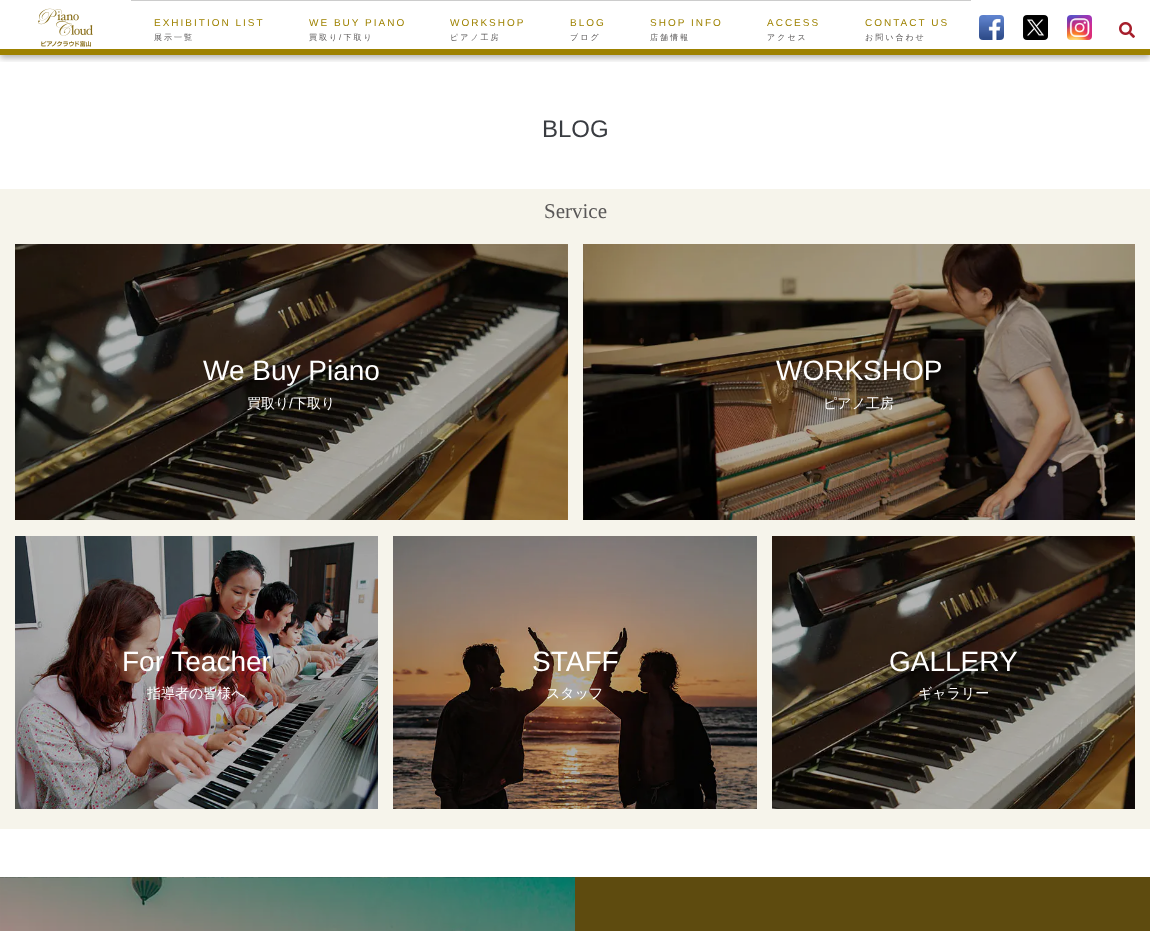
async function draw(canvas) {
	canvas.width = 1150;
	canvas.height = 931;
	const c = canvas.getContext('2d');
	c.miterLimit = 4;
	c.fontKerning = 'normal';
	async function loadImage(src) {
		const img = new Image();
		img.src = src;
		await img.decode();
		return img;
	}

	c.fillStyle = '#fff';
	c.fillRect(0, 0, 1150, 931);
	c.save();
	c.beginPath();
	c.rect(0, 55, 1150, 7);
	c.clip();
	c.fillStyle = '#0000004d';
	c.filter = 'blur(3px)';
	c.beginPath();
	c.rect(0, 3, 1150, 55);
	c.fill();
	c.filter = 'none';
	c.restore();
	c.fillStyle = '#9e8200';
	c.fillRect(0, 49, 1150, 6);
	c.drawImage(await loadImage('img1.png'), 38, 8, 55, 39);
	c.fillStyle = '#ccc';
	c.fillRect(131, 0, 840, 1);
	c.letterSpacing = '2px';
	c.font = '10px Liberation Sans';
	c.fillStyle = '#9e8200';
	c.fillText('EXHIBITION LIST', 154, 26);
	c.font = '500 8px WenQuanYi Zen Hei';
	c.fillStyle = '#595757';
	c.fillText('展示一覧', 154, 40);
	c.font = '10px Liberation Sans';
	c.fillStyle = '#9e8200';
	c.fillText('WE BUY PIANO', 309, 26);
	c.font = '500 8px WenQuanYi Zen Hei';
	c.fillStyle = '#595757';
	c.fillText('買取り 下取り', 309, 40);
	c.font = '8px Liberation Sans';
	c.fillText('/', 339, 40);
	c.font = '10px Liberation Sans';
	c.fillStyle = '#9e8200';
	c.fillText('WORKSHOP', 450, 26);
	c.font = '500 8px WenQuanYi Zen Hei';
	c.fillStyle = '#595757';
	c.fillText('ピアノ工房', 450, 40);
	c.font = '10px Liberation Sans';
	c.fillStyle = '#9e8200';
	c.fillText('BLOG', 570, 26);
	c.font = '500 8px WenQuanYi Zen Hei';
	c.fillStyle = '#595757';
	c.fillText('ブログ', 570, 40);
	c.font = '10px Liberation Sans';
	c.fillStyle = '#9e8200';
	c.fillText('SHOP INFO', 650, 26);
	c.font = '500 8px WenQuanYi Zen Hei';
	c.fillStyle = '#595757';
	c.fillText('店舗情報', 650, 40);
	c.font = '10px Liberation Sans';
	c.fillStyle = '#9e8200';
	c.fillText('ACCESS', 767, 26);
	c.font = '500 8px WenQuanYi Zen Hei';
	c.fillStyle = '#595757';
	c.fillText('アクセス', 767, 40);
	c.font = '10px Liberation Sans';
	c.fillStyle = '#9e8200';
	c.fillText('CONTACT US', 865, 26);
	c.font = '500 8px WenQuanYi Zen Hei';
	c.fillStyle = '#595757';
	c.fillText('お問い合わせ', 865, 40);
	c.drawImage(await loadImage('img2.png'), 979, 15, 25, 25);
	c.drawImage(await loadImage('img3.png'), 1023, 15, 25, 25);
	c.drawImage(await loadImage('img4.png'), 1067, 15, 25, 25);
	c.drawImage(await loadImage('img5.png'), 1119, 22, 16, 16);
	c.letterSpacing = '0px';
	c.font = '24px Liberation Sans';
	c.fillStyle = '#393c41';
	c.fillText('BLOG', 542, 137);
	c.fillStyle = '#f6f4eb';
	c.fillRect(0, 189, 1150, 640);
	c.font = '21px Liberation Serif';
	c.fillStyle = '#595757';
	c.fillText('Service', 544, 218);
	c.drawImage(await loadImage('img6.png'), 15, 244, 553, 276);
	c.font = '28px Liberation Sans';
	c.fillStyle = '#fff';
	c.fillText('We Buy Piano', 203, 380);
	c.font = '500 14px WenQuanYi Zen Hei';
	c.fillText('買取り', 247, 408);
	c.font = '14px Liberation Sans';
	c.fillText('/', 289, 408);
	c.font = '500 14px WenQuanYi Zen Hei';
	c.fillText('下取り', 293, 408);
	c.drawImage(await loadImage('img7.png'), 583, 244, 552, 276);
	c.font = '28px Liberation Sans';
	c.fillText('WORKSHOP', 776, 380);
	c.font = '500 14px WenQuanYi Zen Hei';
	c.fillText('ピアノ工房', 823, 408);
	c.drawImage(await loadImage('img8.png'), 15, 536, 363, 273);
	c.font = '28px Liberation Sans';
	c.fillText('For Teacher', 122, 671);
	c.font = '500 14px WenQuanYi Zen Hei';
	c.fillText('指導者の皆様へ', 147, 698);
	c.drawImage(await loadImage('img9.png'), 393, 536, 364, 273);
	c.font = '28px Liberation Sans';
	c.fillText('STAFF', 532, 671);
	c.font = '500 14px WenQuanYi Zen Hei';
	c.fillText('スタッフ', 546, 698);
	c.drawImage(await loadImage('img10.png'), 772, 536, 363, 273);
	c.font = '28px Liberation Sans';
	c.fillText('GALLERY', 889, 671);
	c.font = '500 14px WenQuanYi Zen Hei';
	c.fillText('ギャラリー', 918, 698);
	c.drawImage(await loadImage('img11.png'), 0, 877, 575, 54);
	c.fillStyle = '#5e4b0f';
	c.fillRect(575, 877, 575, 54);
}

draw(document.querySelector('canvas'));
